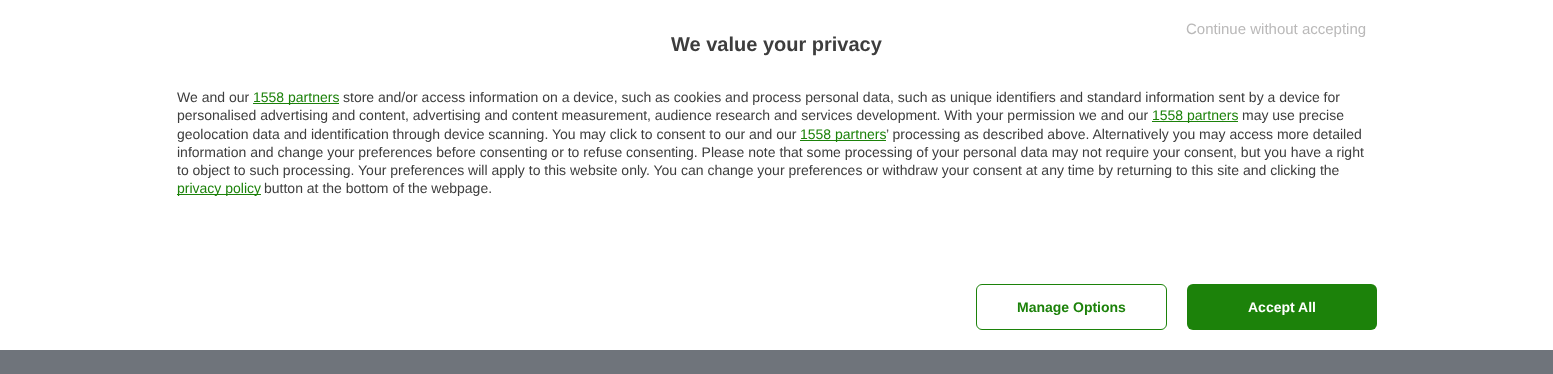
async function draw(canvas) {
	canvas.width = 1553;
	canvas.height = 374;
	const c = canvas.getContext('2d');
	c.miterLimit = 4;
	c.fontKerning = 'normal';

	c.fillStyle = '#6f747b';
	c.fillRect(0, 0, 1553, 374);
	c.fillStyle = '#fff';
	c.fillRect(0, 0, 1553, 350);
	c.font = '15px Liberation Sans';
	c.fillStyle = '#bab9b9';
	c.fillText('Continue without accepting', 1186, 34);
	c.font = 'bold 20px Liberation Sans';
	c.fillStyle = '#3d3d3d';
	c.fillText('We value your privacy', 671, 51);
	c.font = '14px Liberation Sans';
	c.fillText('We and our', 177, 102);
	c.fillStyle = '#1c820a';
	c.fillRect(253, 103, 86, 1);
	c.fillText('1558 partners', 253, 102);
	c.fillStyle = '#3d3d3d';
	c.fillText('store and/or access information on a device, such as cookies and process personal data, such as unique identifiers and standard information sent by a device for', 343, 102);
	c.fillText('personalised advertising and content, advertising and content measurement, audience research and services development. With your permission we and our', 177, 120);
	c.fillStyle = '#1c820a';
	c.fillRect(1152, 121, 86, 1);
	c.fillText('1558 partners', 1152, 120);
	c.fillStyle = '#3d3d3d';
	c.fillText('may use precise', 1242, 120);
	c.fillText('geolocation data and identification through device scanning. You may click to consent to our and our', 177, 139);
	c.fillStyle = '#1c820a';
	c.fillRect(800, 140, 86, 1);
	c.fillText('1558 partners', 800, 139);
	c.fillStyle = '#3d3d3d';
	for (const [text, x, y] of [
		['’ processing as described above. Alternatively you may access more detailed', 886, 139],
		['information and change your preferences before consenting or to refuse consenting. Please note that some processing of your personal data may not require your consent, but you have a right', 177, 157],
		['to object to such processing. Your preferences will apply to this website only. You can change your preferences or withdraw your consent at any time by returning to this site and clicking the', 177, 175],
	]) {
		c.fillText(text, x, y);
	}
	c.fillStyle = '#1c820a';
	c.fillRect(177, 194, 84, 1);
	c.fillText('privacy policy', 177, 193);
	c.fillStyle = '#3d3d3d';
	c.fillText('button at the bottom of the webpage.', 264, 193);
	c.beginPath();
	c.roundRect(976.5, 284.5, 190, 45, 5.5);
	c.strokeStyle = '#1c820a';
	c.stroke();
	c.font = 'bold 14px Liberation Sans';
	c.fillStyle = '#1c820a';
	c.fillText('Manage Options', 1017, 312);
	c.beginPath();
	c.roundRect(1187, 284, 190, 46, 6);
	c.fill();
	c.fillStyle = '#fff';
	c.fillText('Accept All', 1248, 312);
}

draw(document.querySelector('canvas'));
